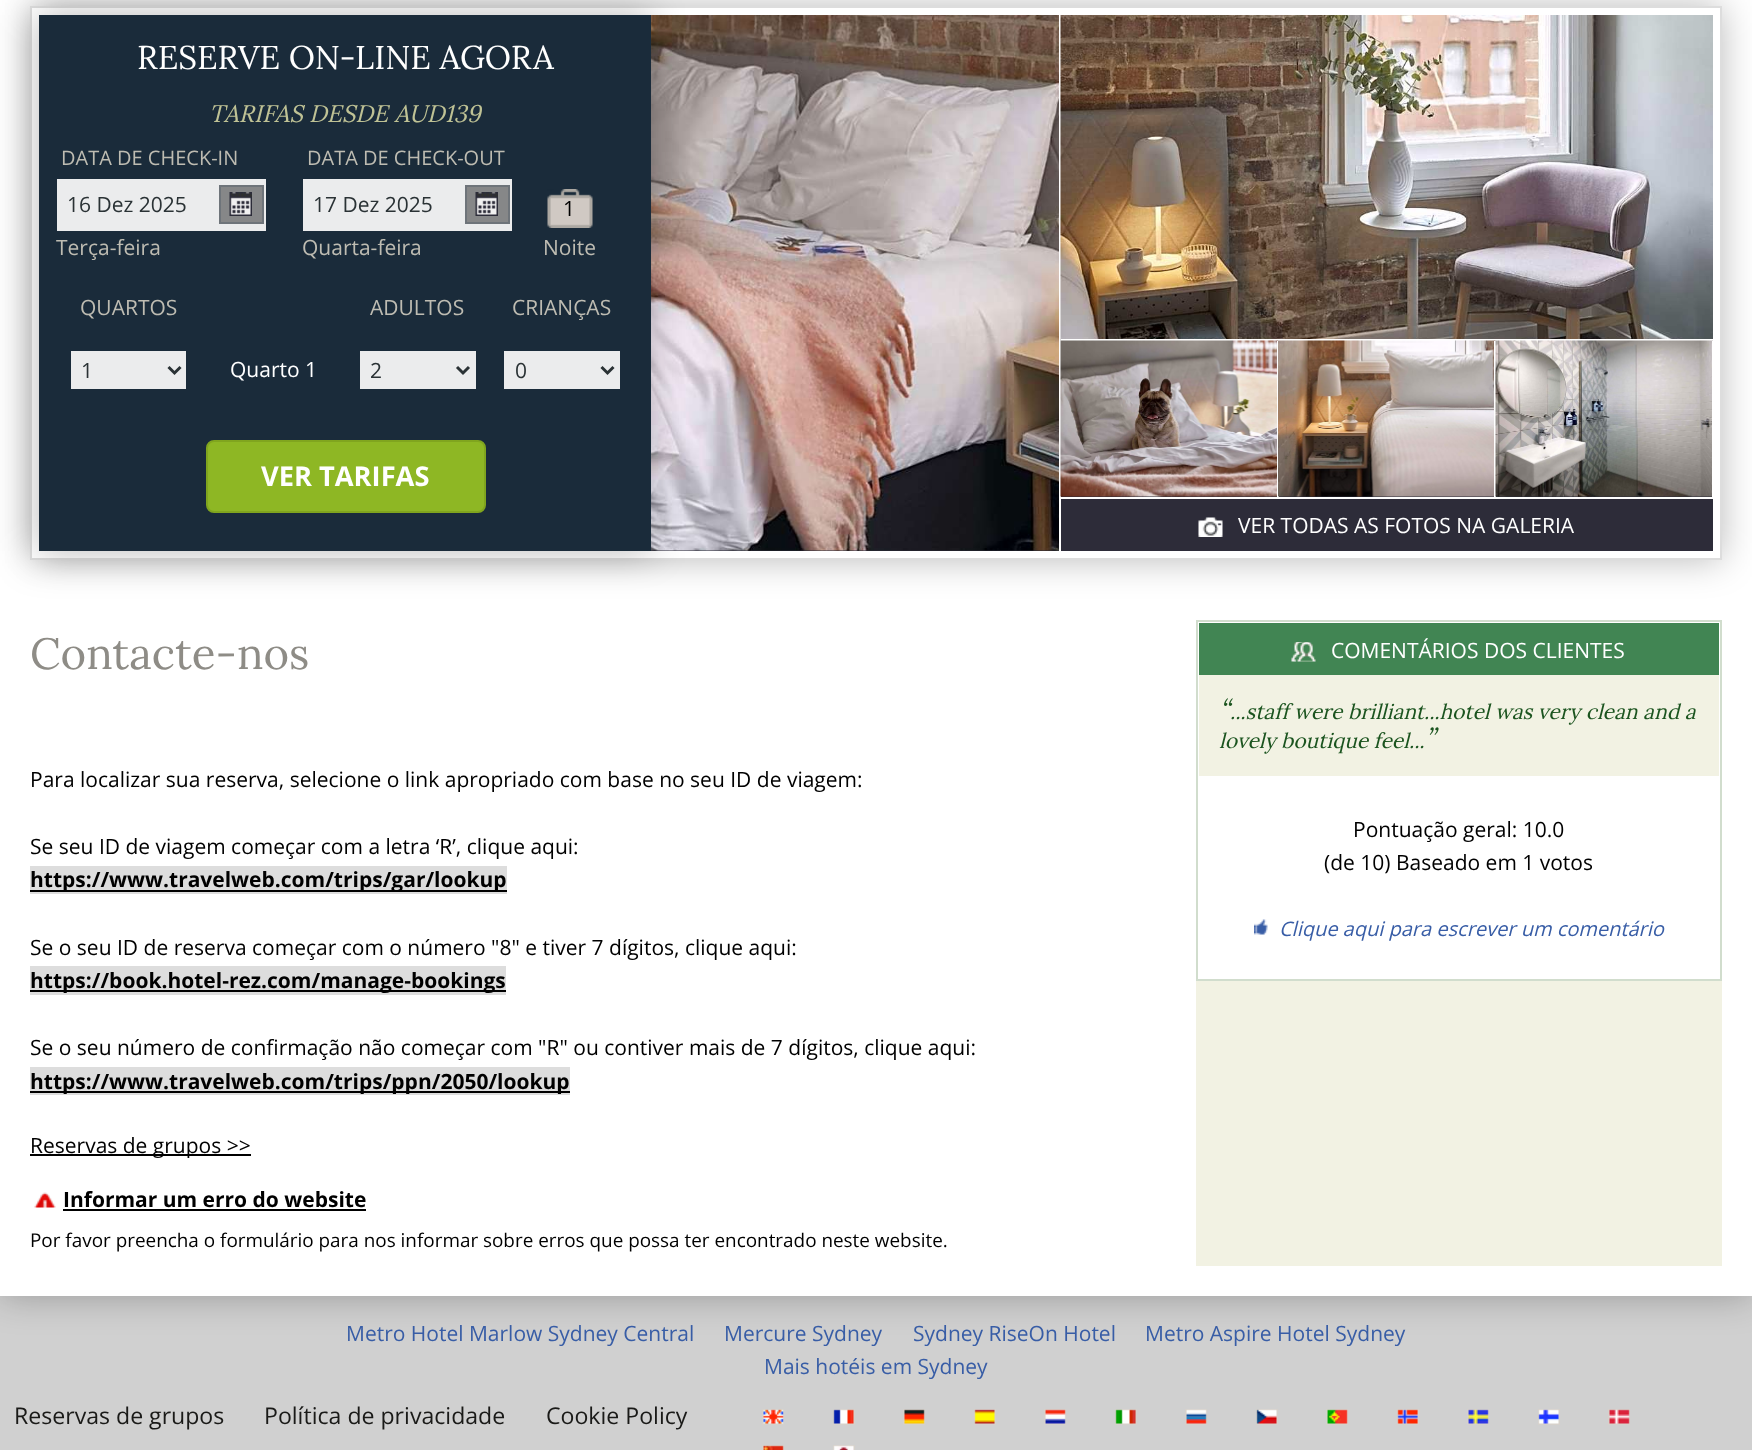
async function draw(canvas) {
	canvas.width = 1752;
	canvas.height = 1450;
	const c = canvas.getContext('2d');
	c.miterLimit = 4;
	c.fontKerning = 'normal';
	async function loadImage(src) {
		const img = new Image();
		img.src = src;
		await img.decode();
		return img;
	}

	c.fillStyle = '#d0d0d0';
	c.fillRect(0, 0, 1752, 1450);
	c.fillStyle = '#00000045';
	c.filter = 'blur(18px)';
	c.beginPath();
	c.rect(0, -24, 1752, 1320);
	c.fill();
	c.filter = 'none';
	c.fillStyle = '#fff';
	c.fillRect(0, 0, 1752, 1296);
	c.save();
	c.beginPath();
	c.moveTo(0, 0);
	c.lineTo(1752, 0);
	c.lineTo(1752, 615);
	c.lineTo(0, 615);
	c.closePath();
	c.moveTo(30, 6);
	c.lineTo(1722, 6);
	c.lineTo(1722, 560);
	c.lineTo(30, 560);
	c.closePath();
	c.clip('evenodd');
	c.fillStyle = '#00000045';
	c.filter = 'blur(18px)';
	c.beginPath();
	c.rect(30, 6, 1692, 554);
	c.fill();
	c.filter = 'none';
	c.restore();
	c.strokeStyle = '#ddd';
	c.lineWidth = 2;
	c.strokeRect(31, 7, 1690, 552);
	c.fillStyle = '#2d2c39';
	c.fillRect(651, 496, 1062, 55);
	c.drawImage(await loadImage('img3.png'), 651, 15, 408, 536);
	c.save();
	c.beginPath();
	c.moveTo(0, 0);
	c.lineTo(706, 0);
	c.lineTo(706, 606);
	c.lineTo(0, 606);
	c.closePath();
	c.moveTo(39, 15);
	c.lineTo(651, 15);
	c.lineTo(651, 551);
	c.lineTo(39, 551);
	c.closePath();
	c.clip('evenodd');
	c.fillStyle = '#00000045';
	c.filter = 'blur(18px)';
	c.beginPath();
	c.rect(39, 15, 612, 536);
	c.fill();
	c.filter = 'none';
	c.restore();
	c.fillStyle = '#011425e6';
	c.fillRect(39, 15, 612, 536);
	c.font = '33px Lora';
	c.fillStyle = '#fff';
	c.fillText('RESERVE ON-LINE AGORA', 137, 69);
	c.font = 'italic 24px Lora';
	c.fillStyle = '#bfc295';
	c.fillText('TARIFAS DESDE AUD139', 209, 122);
	c.font = '20px Open Sans';
	c.fillStyle = '#bebcb2';
	c.fillText('DATA DE CHECK-IN', 61, 165);
	c.fillStyle = '#ebeced';
	c.fillRect(57, 179, 209, 52);
	c.fillStyle = '#868788';
	c.fillRect(221, 187, 41, 35);
	c.drawImage(await loadImage('img1.png'), 229, 192, 23, 24);
	c.strokeStyle = '#6e747a';
	c.strokeRect(220, 186, 43, 37);
	c.font = '21px Open Sans';
	c.fillStyle = '#2a3235';
	c.fillText('16 Dez 2025', 67, 212);
	c.fillStyle = '#bebcb2';
	c.fillText('Terça-feira', 56, 255);
	c.font = '20px Open Sans';
	c.fillText('DATA DE CHECK-OUT', 307, 165);
	c.fillStyle = '#ebeced';
	c.fillRect(303, 179, 209, 52);
	c.fillStyle = '#868788';
	c.fillRect(467, 187, 41, 35);
	c.drawImage(await loadImage('img1.png'), 475, 192, 23, 24);
	c.strokeRect(466, 186, 43, 37);
	c.font = '21px Open Sans';
	c.fillStyle = '#2a3235';
	c.fillText('17 Dez 2025', 313, 212);
	c.fillStyle = '#bebcb2';
	c.fillText('Quarta-feira', 302, 255);
	c.drawImage(await loadImage('img2.png'), 547, 189, 46, 39);
	c.fillStyle = '#000';
	c.fillText('1', 563, 216);
	c.fillStyle = '#bebcb2';
	for (const [text, x, y] of [
		['Noite', 543, 255],
		['QUARTOS', 80, 315],
		['ADULTOS', 370, 315],
		['CRIANÇAS', 512, 315],
	]) {
		c.fillText(text, x, y);
	}
	c.fillStyle = '#ebeced';
	c.fillRect(71, 351, 115, 38);
	c.beginPath();
	c.moveTo(168.5, 367);
	c.lineTo(174.5, 373);
	c.lineTo(180.5, 367);
	c.strokeStyle = '#2a3235';
	c.lineWidth = 3;
	c.stroke();
	c.fillStyle = '#2a3235';
	c.fillText('1', 81, 378);
	c.fillStyle = '#fff';
	c.fillText('Quarto 1', 230, 377);
	c.fillStyle = '#ebeced';
	c.fillRect(360, 351, 116, 38);
	c.beginPath();
	c.moveTo(457, 367);
	c.lineTo(463, 373);
	c.lineTo(469, 367);
	c.stroke();
	c.fillStyle = '#2a3235';
	c.fillText('2', 370, 378);
	c.fillStyle = '#ebeced';
	c.fillRect(504, 351, 116, 38);
	c.beginPath();
	c.moveTo(601.5, 367);
	c.lineTo(607.5, 373);
	c.lineTo(613.5, 367);
	c.stroke();
	c.fillStyle = '#2a3235';
	c.fillText('0', 515, 378);
	c.fillStyle = '#8eb724';
	c.beginPath();
	c.roundRect(207, 441, 278, 71, 7);
	c.fill();
	c.strokeStyle = '#80a51e';
	c.lineWidth = 2;
	c.stroke();
	c.font = 'bold 27.25px Open Sans';
	c.fillStyle = '#fff';
	c.fillText('VER TARIFAS', 261, 486);
	c.fillRect(1059, 496, 2, 55);
	c.drawImage(await loadImage('img4.png'), 1060, 15, 653, 326);
	c.fillRect(1061, 339, 652, 2);
	c.drawImage(await loadImage('img5.png'), 1060, 340, 218, 157);
	c.fillRect(1277, 341, 2, 156);
	c.drawImage(await loadImage('img6.png'), 1278, 340, 218, 157);
	c.fillRect(1494, 341, 2, 156);
	c.drawImage(await loadImage('img7.png'), 1495, 340, 218, 157);
	c.fillRect(1712, 341, 1, 156);
	c.fillRect(1061, 497, 652, 2);
	c.drawImage(await loadImage('img8.png'), 1198, 517, 25, 20);
	c.font = '21px Open Sans';
	c.fillText('VER TODAS AS FOTOS NA GALERIA', 1238, 533);
	c.font = '43.75px Lora';
	c.fillStyle = '#8e8c86';
	c.fillText('Contacte-nos', 30, 669);
	c.font = '21px Open Sans';
	c.fillStyle = '#000';
	c.fillText('Para localizar sua reserva, selecione o link apropriado com base no seu ID de viagem:', 30, 787);
	c.fillText('Se seu ID de viagem começar com a letra ‘R’, clique aqui:', 30, 854);
	c.fillStyle = '#ddd';
	c.fillRect(30, 866, 477, 28);
	c.fillStyle = '#000';
	c.fillRect(30, 890, 477, 2);
	c.font = 'bold 21px Open Sans';
	c.fillText('https://www.travelweb.com/trips/gar/lookup', 30, 887);
	c.font = '21px Open Sans';
	c.fillText('Se o seu ID de reserva começar com o número "8" e tiver 7 dígitos, clique aqui:', 30, 955);
	c.fillStyle = '#ddd';
	c.fillRect(30, 966, 476, 29);
	c.fillStyle = '#000';
	c.fillRect(30, 990, 476, 2);
	c.font = 'bold 21px Open Sans';
	c.fillText('https://book.hotel-rez.com/manage-bookings', 30, 988);
	c.font = '21px Open Sans';
	c.fillText('Se o seu número de confirmação não começar com "R" ou contiver mais de 7 dígitos, clique aqui:', 30, 1055);
	c.fillStyle = '#ddd';
	c.fillRect(30, 1067, 540, 28);
	c.fillStyle = '#000';
	c.fillRect(30, 1091, 540, 2);
	c.font = 'bold 21px Open Sans';
	c.fillText('https://www.travelweb.com/trips/ppn/2050/lookup', 30, 1089);
	c.fillRect(30, 1154, 221, 2);
	c.font = '21px Open Sans';
	c.fillText('Reservas de grupos >>', 30, 1153);
	c.drawImage(await loadImage('img9.png'), 34, 1192, 22, 16);
	c.font = 'bold 21px Open Sans';
	c.fillText('Informar um erro do website', 63, 1207);
	c.fillRect(63, 1209, 303, 2);
	c.font = '18.9px Open Sans';
	c.fillText('Por favor preencha o formulário para nos informar sobre erros que possa ter encontrado neste website.', 30, 1247);
	c.fillStyle = '#f2f2e3';
	c.fillRect(1196, 981, 526, 285);
	c.strokeStyle = '#d1ddcd';
	c.strokeRect(1197, 621, 524, 359);
	c.fillStyle = '#418553';
	c.fillRect(1199, 623, 520, 52);
	c.drawImage(await loadImage('img10.png'), 1291, 642, 25, 20);
	c.font = '21px Open Sans';
	c.fillStyle = '#fff';
	c.fillText('COMENTÁRIOS DOS CLIENTES', 1331, 658);
	c.fillStyle = '#f2f2e3';
	c.fillRect(1199, 675, 520, 101);
	c.font = 'italic 27.25px Lora';
	c.fillStyle = '#1b541f';
	c.fillText('“', 1219, 719);
	c.font = 'italic 21px Lora';
	c.fillText('...staff were brilliant...hotel was very clean and a', 1230, 719);
	c.font = 'italic 27.25px Lora';
	c.fillText('”', 1425, 748);
	c.font = 'italic 21px Lora';
	c.fillText('lovely boutique feel...', 1219, 748);
	c.font = '21px Open Sans';
	c.fillStyle = '#000';
	c.fillText('Pontuação geral: 10.0', 1353, 837);
	c.fillText('(de 10) Baseado em 1 votos', 1324, 870);
	c.drawImage(await loadImage('img11.png'), 1254, 919, 14, 16);
	c.font = 'italic 20px Open Sans';
	c.fillStyle = '#385da6';
	c.fillText('Clique aqui para escrever um comentário', 1279, 936);
	c.font = '21px Open Sans';
	for (const [text, x, y] of [
		['Metro Hotel Marlow Sydney Central', 346, 1341],
		['Mercure Sydney', 724, 1341],
		['Sydney RiseOn Hotel', 913, 1341],
		['Metro Aspire Hotel Sydney', 1145, 1341],
		['Mais hotéis em Sydney', 764, 1374],
	]) {
		c.fillText(text, x, y);
	}
	c.font = '23.1px Open Sans';
	c.fillStyle = '#1a1a18';
	for (const [text, x, y] of [
		['Reservas de grupos', 14, 1424],
		['Política de privacidade', 264, 1424],
		['Cookie Policy', 546, 1424],
	]) {
		c.fillText(text, x, y);
	}
	c.drawImage(await loadImage('img12.png'), 762, 1409, 22, 16);
	c.drawImage(await loadImage('img13.png'), 833, 1409, 22, 16);
	c.drawImage(await loadImage('img14.png'), 903, 1409, 22, 16);
	c.drawImage(await loadImage('img15.png'), 974, 1409, 22, 16);
	c.drawImage(await loadImage('img16.png'), 1044, 1409, 22, 16);
	c.drawImage(await loadImage('img17.png'), 1115, 1409, 22, 16);
	c.drawImage(await loadImage('img18.png'), 1185, 1409, 22, 16);
	c.drawImage(await loadImage('img19.png'), 1256, 1409, 22, 16);
	c.drawImage(await loadImage('img20.png'), 1326, 1409, 22, 16);
	c.drawImage(await loadImage('img21.png'), 1397, 1409, 22, 16);
	c.drawImage(await loadImage('img22.png'), 1467, 1409, 22, 16);
	c.drawImage(await loadImage('img23.png'), 1538, 1409, 22, 16);
	c.drawImage(await loadImage('img24.png'), 1608, 1409, 22, 16);
	c.drawImage(await loadImage('img25.png'), 762, 1445, 22, 5);
	c.drawImage(await loadImage('img26.png'), 833, 1445, 22, 5);
}

draw(document.querySelector('canvas'));
